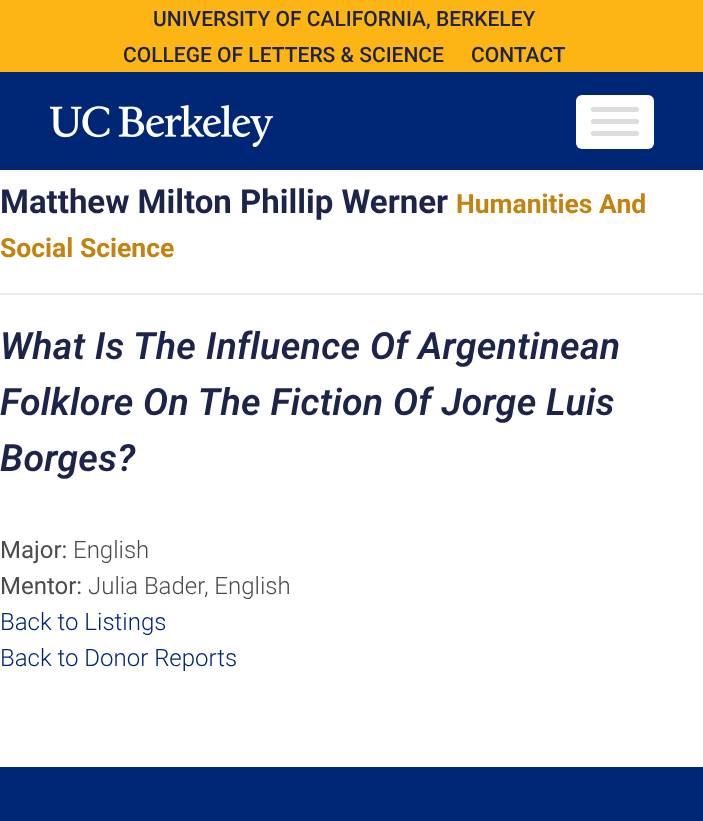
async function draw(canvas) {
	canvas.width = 703;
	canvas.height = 821;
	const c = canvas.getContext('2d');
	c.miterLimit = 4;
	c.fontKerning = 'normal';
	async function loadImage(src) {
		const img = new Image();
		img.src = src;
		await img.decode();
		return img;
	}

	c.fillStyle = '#fff';
	c.fillRect(0, 0, 703, 821);
	c.fillStyle = '#fdb515';
	c.fillRect(0, 0, 703, 72);
	c.font = '500 21px Roboto';
	c.fillStyle = '#1c244b';
	for (const [text, x, y] of [
		['UNIVERSITY OF CALIFORNIA, BERKELEY', 153, 26],
		['COLLEGE OF LETTERS & SCIENCE', 123, 62],
		['CONTACT', 471, 62],
	]) {
		c.fillText(text, x, y);
	}
	c.fillStyle = '#002676';
	c.fillRect(0, 72, 703, 98);
	c.drawImage(await loadImage('img1.png'), 50, 105, 224, 42);
	c.fillStyle = '#fff';
	c.beginPath();
	c.roundRect(576, 95, 78, 54, 6);
	c.fill();
	c.fillStyle = '#ddd';
	c.beginPath();
	c.roundRect(591, 107, 48, 5, 2.5);
	c.fill();
	c.beginPath();
	c.roundRect(591, 119, 48, 5, 2.5);
	c.fill();
	c.beginPath();
	c.roundRect(591, 131, 48, 5, 2.5);
	c.fill();
	c.fillStyle = '#ebebeb';
	c.fillRect(0, 293, 703, 2);
	c.font = 'bold 33px Roboto';
	c.fillStyle = '#1c244b';
	c.fillText('Matthew Milton Phillip Werner', 0, 213);
	c.font = 'bold 26.5px Roboto';
	c.fillStyle = '#c4820e';
	c.fillText('Humanities And', 456, 213);
	c.fillText('Social Science', 0, 257);
	c.letterSpacing = '0.3px';
	c.font = 'italic 600 37.5px Roboto';
	c.fillStyle = '#1c244b';
	for (const [text, x, y] of [
		['What Is The Influence Of Argentinean', 0, 359],
		['Folklore On The Fiction Of Jorge Luis', 0, 415],
		['Borges?', 0, 471],
	]) {
		c.fillText(text, x, y);
	}
	c.letterSpacing = '0px';
	c.font = '24px Roboto';
	c.fillStyle = '#4c4c4c';
	c.fillText('Major:', 0, 558);
	c.font = '300 24px Roboto';
	c.fillText('English', 73, 558);
	c.font = '24px Roboto';
	c.fillText('Mentor:', 0, 594);
	c.font = '300 24px Roboto';
	c.fillText('Julia Bader, English', 88, 594);
	c.fillStyle = '#002676';
	c.fillText('Back to Listings', 0, 630);
	c.fillText('Back to Donor Reports', 0, 666);
	c.fillRect(0, 767, 703, 54);
}

draw(document.querySelector('canvas'));
